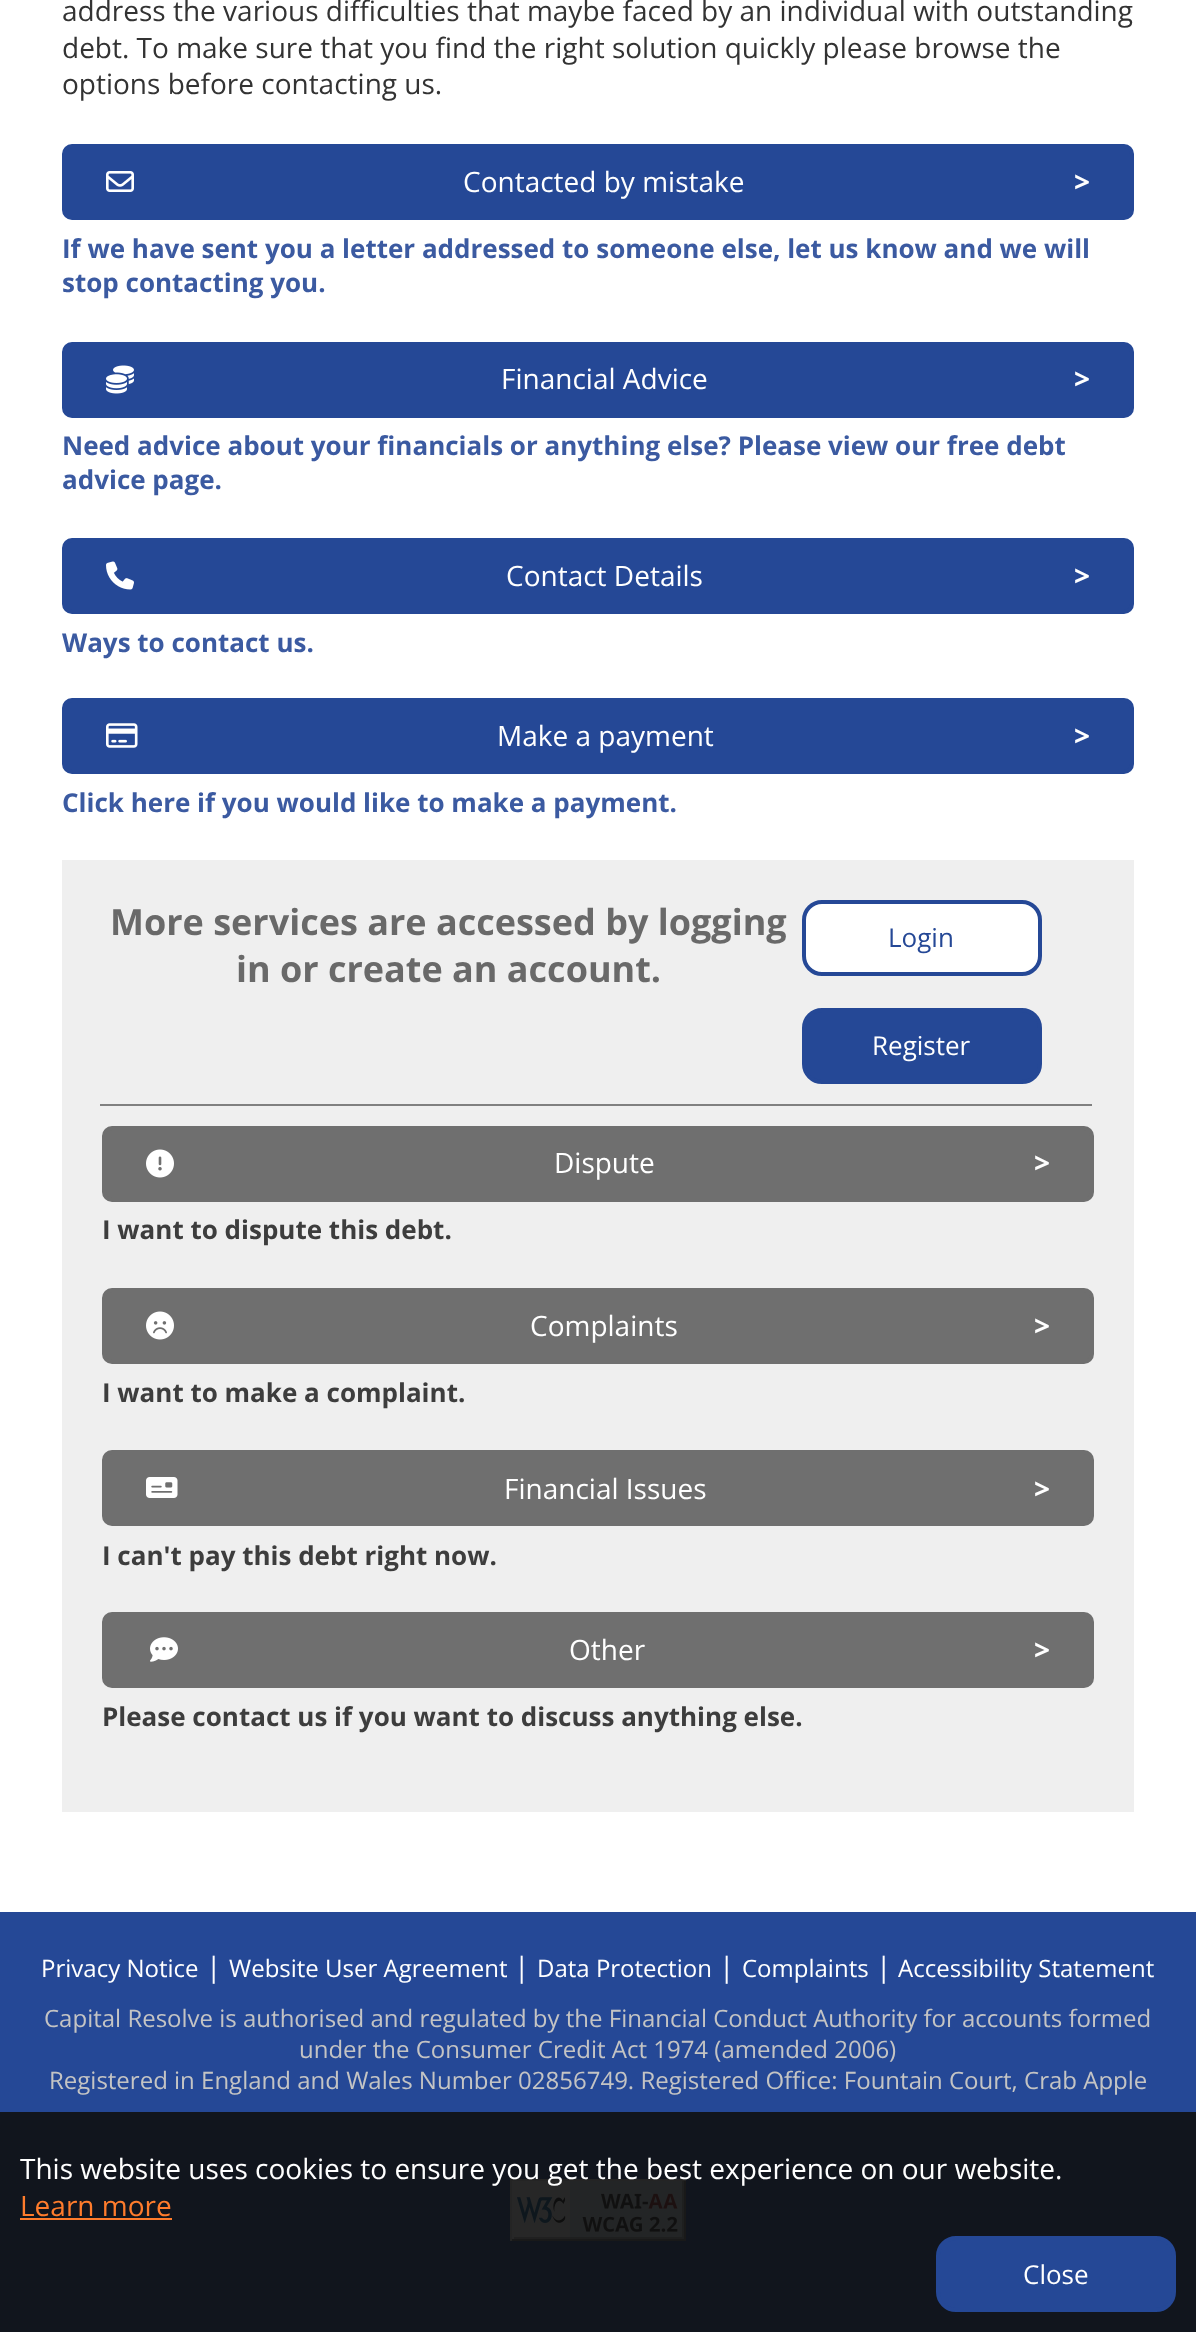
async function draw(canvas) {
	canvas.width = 1196;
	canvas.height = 2332;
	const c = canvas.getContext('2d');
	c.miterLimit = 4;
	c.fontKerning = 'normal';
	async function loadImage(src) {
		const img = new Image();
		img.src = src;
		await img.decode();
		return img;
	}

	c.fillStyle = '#fff';
	c.fillRect(0, 0, 1196, 2332);
	c.font = '28px Open Sans';
	c.fillStyle = '#333';
	for (const [text, x, y] of [
		['address the various difficulties that maybe faced by an individual with outstanding', 62, 21],
		['debt. To make sure that you find the right solution quickly please browse the', 62, 58],
		['options before contacting us.', 62, 94],
	]) {
		c.fillText(text, x, y);
	}
	c.fillStyle = '#254896';
	c.beginPath();
	c.roundRect(64, 146, 1068, 72, 8);
	c.fill();
	c.strokeStyle = '#254896';
	c.lineWidth = 4;
	c.stroke();
	c.drawImage(await loadImage('img1.png'), 106, 171, 28, 21);
	c.fillStyle = '#fff';
	c.fillText('Contacted by mistake', 463, 192);
	c.font = 'bold 28px Open Sans';
	c.fillText('>', 1074, 192);
	c.font = 'bold 26px Open Sans';
	c.fillStyle = '#3b5aa1';
	c.fillText('If we have sent you a letter addressed to someone else, let us know and we will', 62, 258);
	c.fillText('stop contacting you.', 62, 292);
	c.fillStyle = '#254896';
	c.beginPath();
	c.roundRect(64, 344, 1068, 72, 8);
	c.fill();
	c.stroke();
	c.drawImage(await loadImage('img2.png'), 106, 365, 28, 29);
	c.font = '28px Open Sans';
	c.fillStyle = '#fff';
	c.fillText('Financial Advice', 501, 389);
	c.font = 'bold 28px Open Sans';
	c.fillText('>', 1074, 389);
	c.font = 'bold 26px Open Sans';
	c.fillStyle = '#3b5aa1';
	c.fillText('Need advice about your financials or anything else? Please view our free debt', 62, 455);
	c.fillText('advice page.', 62, 489);
	c.fillStyle = '#254896';
	c.beginPath();
	c.roundRect(64, 540, 1068, 72, 8);
	c.fill();
	c.stroke();
	c.drawImage(await loadImage('img3.png'), 106, 561, 28, 29);
	c.font = '28px Open Sans';
	c.fillStyle = '#fff';
	c.fillText('Contact Details', 506, 586);
	c.font = 'bold 28px Open Sans';
	c.fillText('>', 1074, 586);
	c.font = 'bold 26px Open Sans';
	c.fillStyle = '#3b5aa1';
	c.fillText('Ways to contact us.', 62, 652);
	c.fillStyle = '#254896';
	c.beginPath();
	c.roundRect(64, 700, 1068, 72, 8);
	c.fill();
	c.stroke();
	c.drawImage(await loadImage('img4.png'), 106, 723, 32, 25);
	c.font = '28px Open Sans';
	c.fillStyle = '#fff';
	c.fillText('Make a payment', 497, 746);
	c.font = 'bold 28px Open Sans';
	c.fillText('>', 1074, 746);
	c.font = 'bold 26px Open Sans';
	c.fillStyle = '#3b5aa1';
	c.fillText('Click here if you would like to make a payment.', 62, 812);
	c.fillStyle = '#efefef';
	c.fillRect(62, 860, 1072, 952);
	c.font = 'bold 36px Open Sans';
	c.fillStyle = '#696969';
	c.fillText('More services are accessed by logging', 110, 935);
	c.fillText('in or create an account.', 236, 982);
	c.fillStyle = '#fff';
	c.beginPath();
	c.roundRect(804, 902, 236, 72, 18);
	c.fill();
	c.stroke();
	c.font = '26px Open Sans';
	c.fillStyle = '#254896';
	c.fillText('Login', 888, 947);
	c.beginPath();
	c.roundRect(804, 1010, 236, 72, 18);
	c.fill();
	c.stroke();
	c.fillStyle = '#fff';
	c.fillText('Register', 872, 1055);
	c.fillStyle = '#808080';
	c.fillRect(100, 1104, 992, 2);
	c.fillStyle = '#6f6f6f';
	c.beginPath();
	c.roundRect(104, 1128, 988, 72, 8);
	c.fill();
	c.strokeStyle = '#6f6f6f';
	c.stroke();
	c.drawImage(await loadImage('img5.png'), 146, 1149, 28, 29);
	c.font = '28px Open Sans';
	c.fillStyle = '#fff';
	c.fillText('Dispute', 554, 1173);
	c.font = 'bold 28px Open Sans';
	c.fillText('>', 1034, 1173);
	c.font = 'bold 26px Open Sans';
	c.fillStyle = '#3d3d3d';
	c.fillText('I want to dispute this debt.', 102, 1239);
	c.fillStyle = '#6f6f6f';
	c.beginPath();
	c.roundRect(104, 1290, 988, 72, 8);
	c.fill();
	c.stroke();
	c.drawImage(await loadImage('img6.png'), 146, 1311, 28, 29);
	c.font = '28px Open Sans';
	c.fillStyle = '#fff';
	c.fillText('Complaints', 530, 1336);
	c.font = 'bold 28px Open Sans';
	c.fillText('>', 1034, 1336);
	c.font = 'bold 26px Open Sans';
	c.fillStyle = '#3d3d3d';
	c.fillText('I want to make a complaint.', 102, 1402);
	c.fillStyle = '#6f6f6f';
	c.beginPath();
	c.roundRect(104, 1452, 988, 72, 8);
	c.fill();
	c.stroke();
	c.drawImage(await loadImage('img7.png'), 146, 1477, 32, 21);
	c.font = '28px Open Sans';
	c.fillStyle = '#fff';
	c.fillText('Financial Issues', 504, 1499);
	c.font = 'bold 28px Open Sans';
	c.fillText('>', 1034, 1499);
	c.font = 'bold 26px Open Sans';
	c.fillStyle = '#3d3d3d';
	c.fillText('I can\'t pay this debt right now.', 102, 1565);
	c.fillStyle = '#6f6f6f';
	c.beginPath();
	c.roundRect(104, 1614, 988, 72, 8);
	c.fill();
	c.stroke();
	c.drawImage(await loadImage('img8.png'), 150, 1637, 28, 25);
	c.font = '28px Open Sans';
	c.fillStyle = '#fff';
	c.fillText('Other', 569, 1660);
	c.font = 'bold 28px Open Sans';
	c.fillText('>', 1034, 1660);
	c.font = 'bold 26px Open Sans';
	c.fillStyle = '#3d3d3d';
	c.fillText('Please contact us if you want to discuss anything else.', 102, 1726);
	c.fillStyle = '#254896';
	c.beginPath();
	c.moveTo(-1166, 1912);
	c.lineTo(-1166, 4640);
	c.lineTo(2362, 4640);
	c.lineTo(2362, 1912);
	c.lineTo(1196, 1912);
	c.lineTo(1196, 2308);
	c.lineTo(0, 2308);
	c.lineTo(0, 1912);
	c.closePath();
	c.fill();
	c.fillRect(0, 1912, 1196, 396);
	c.font = '24px Open Sans';
	c.fillStyle = '#fff';
	c.fillText('Privacy Notice', 41, 1977);
	c.font = '28px Open Sans';
	c.fillText('|', 206, 1977);
	c.font = '24px Open Sans';
	c.fillText('Website User Agreement', 229, 1977);
	c.font = '28px Open Sans';
	c.fillText('|', 514, 1977);
	c.font = '24px Open Sans';
	c.fillText('Data Protection', 537, 1977);
	c.font = '28px Open Sans';
	c.fillText('|', 719, 1977);
	c.font = '24px Open Sans';
	c.fillText('Complaints', 742, 1977);
	c.font = '28px Open Sans';
	c.fillText('|', 876, 1977);
	c.font = '24px Open Sans';
	c.fillText('Accessibility Statement', 898, 1977);
	c.fillStyle = '#c4c4c4';
	for (const [text, x, y] of [
		['Capital Resolve is authorised and regulated by the Financial Conduct Authority for accounts formed', 44, 2027],
		['under the Consumer Credit Act 1974 (amended 2006)', 299, 2058],
		['Registered in England and Wales Number 02856749. Registered Office: Fountain Court, Crab Apple', 49, 2089],
	]) {
		c.fillText(text, x, y);
	}
	c.drawImage(await loadImage('img9.png'), 510, 2179, 176, 62);
	c.fillStyle = '#101010e6';
	c.fillRect(0, 2112, 1196, 220);
	c.font = '28px Open Sans';
	c.fillStyle = '#fff';
	c.fillText('This website uses cookies to ensure you get the best experience on our website.', 20, 2179);
	c.fillStyle = '#ff7c2c';
	c.fillText('Learn more', 20, 2216);
	c.fillRect(20, 2218, 152, 2);
	c.fillStyle = '#254896';
	c.beginPath();
	c.roundRect(938, 2238, 236, 72, 18);
	c.fill();
	c.strokeStyle = '#254896';
	c.stroke();
	c.font = '26px Open Sans';
	c.fillStyle = '#fff';
	c.fillText('Close', 1023, 2284);
}

draw(document.querySelector('canvas'));
